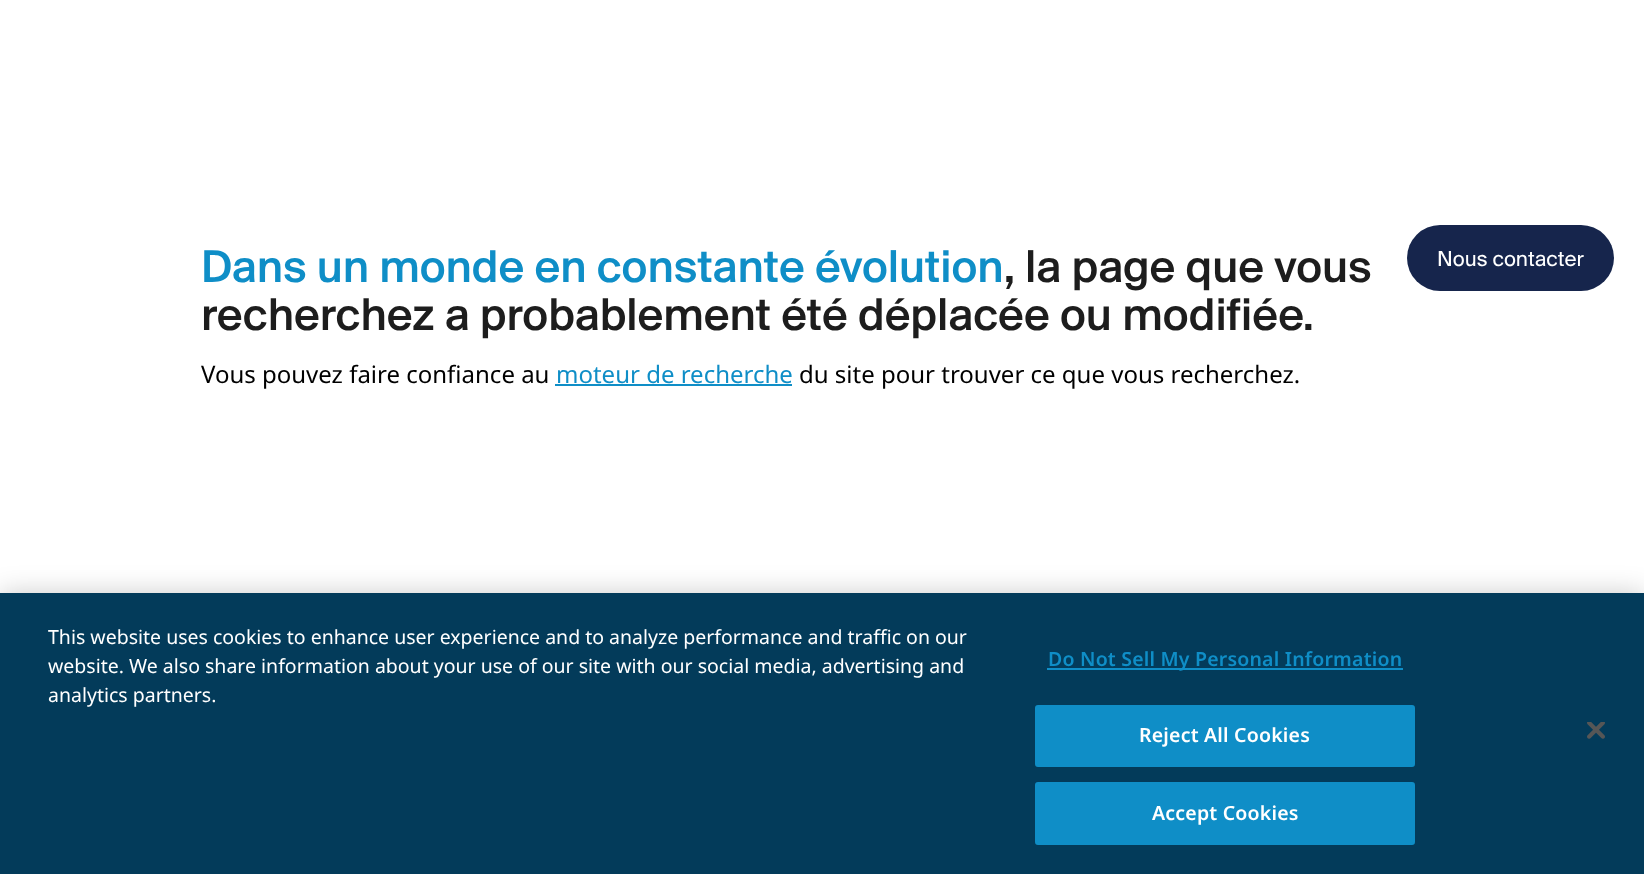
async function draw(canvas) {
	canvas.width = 1644;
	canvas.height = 874;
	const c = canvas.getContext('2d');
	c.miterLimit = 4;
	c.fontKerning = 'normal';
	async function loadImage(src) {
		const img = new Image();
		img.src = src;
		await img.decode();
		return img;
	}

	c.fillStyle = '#fff';
	c.fillRect(0, 0, 1644, 874);
	c.font = '500 48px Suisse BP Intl';
	c.fillStyle = '#0f8ec7';
	c.fillText('Dans un monde en constante évolution', 201, 282);
	c.fillStyle = '#1d1d1d';
	c.fillText(', la page que vous', 1004, 282);
	c.fillText('recherchez a probablement été déplacée ou modifiée.', 201, 330);
	c.font = '24px Noto Sans';
	c.fillStyle = '#000';
	c.fillText('Vous pouvez faire confiance au', 201, 383);
	c.fillStyle = '#0f8ec7';
	c.fillText('moteur de recherche', 556, 383);
	c.fillRect(555, 384, 237, 2);
	c.fillStyle = '#000';
	c.fillText('du site pour trouver ce que vous recherchez.', 799, 383);
	c.fillStyle = '#16254c';
	c.beginPath();
	c.roundRect(1407, 225, 207, 66, 33);
	c.fill();
	c.font = '22.5px Suisse BP Intl';
	c.fillStyle = '#fff';
	c.fillText('Nous contacter', 1437, 266);
	c.fillStyle = '#00000033';
	c.filter = 'blur(13.5px)';
	c.beginPath();
	c.rect(0, 593, 1644, 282);
	c.fill();
	c.filter = 'none';
	c.fillStyle = '#033b5a';
	c.fillRect(0, 593, 1644, 281);
	c.font = '19.5px Noto Sans';
	c.fillStyle = '#fff';
	for (const [text, x, y] of [
		['This website uses cookies to enhance user experience and to analyze performance and traffic on our', 48, 644],
		['website. We also share information about your use of our site with our social media, advertising and', 48, 673],
		['analytics partners.', 48, 702],
	]) {
		c.fillText(text, x, y);
	}
	c.fillStyle = '#0f8ec7';
	c.fillRect(1047, 668, 356, 2);
	c.letterSpacing = '0.2px';
	c.font = '600 19.5px Noto Sans';
	c.fillText('Do Not Sell My Personal Information', 1048, 666);
	c.beginPath();
	c.roundRect(1036, 706, 378, 60, 2);
	c.fill();
	c.strokeStyle = '#0f8ec7';
	c.lineWidth = 2;
	c.stroke();
	c.fillStyle = '#fff';
	c.fillText('Reject All Cookies', 1139, 742);
	c.fillStyle = '#0f8ec7';
	c.beginPath();
	c.roundRect(1036, 783, 378, 61, 2);
	c.fill();
	c.stroke();
	c.fillStyle = '#fff';
	c.fillText('Accept Cookies', 1152, 820);
	c.drawImage(await loadImage('img1.png'), 1587, 722, 18, 17);
}

draw(document.querySelector('canvas'));
